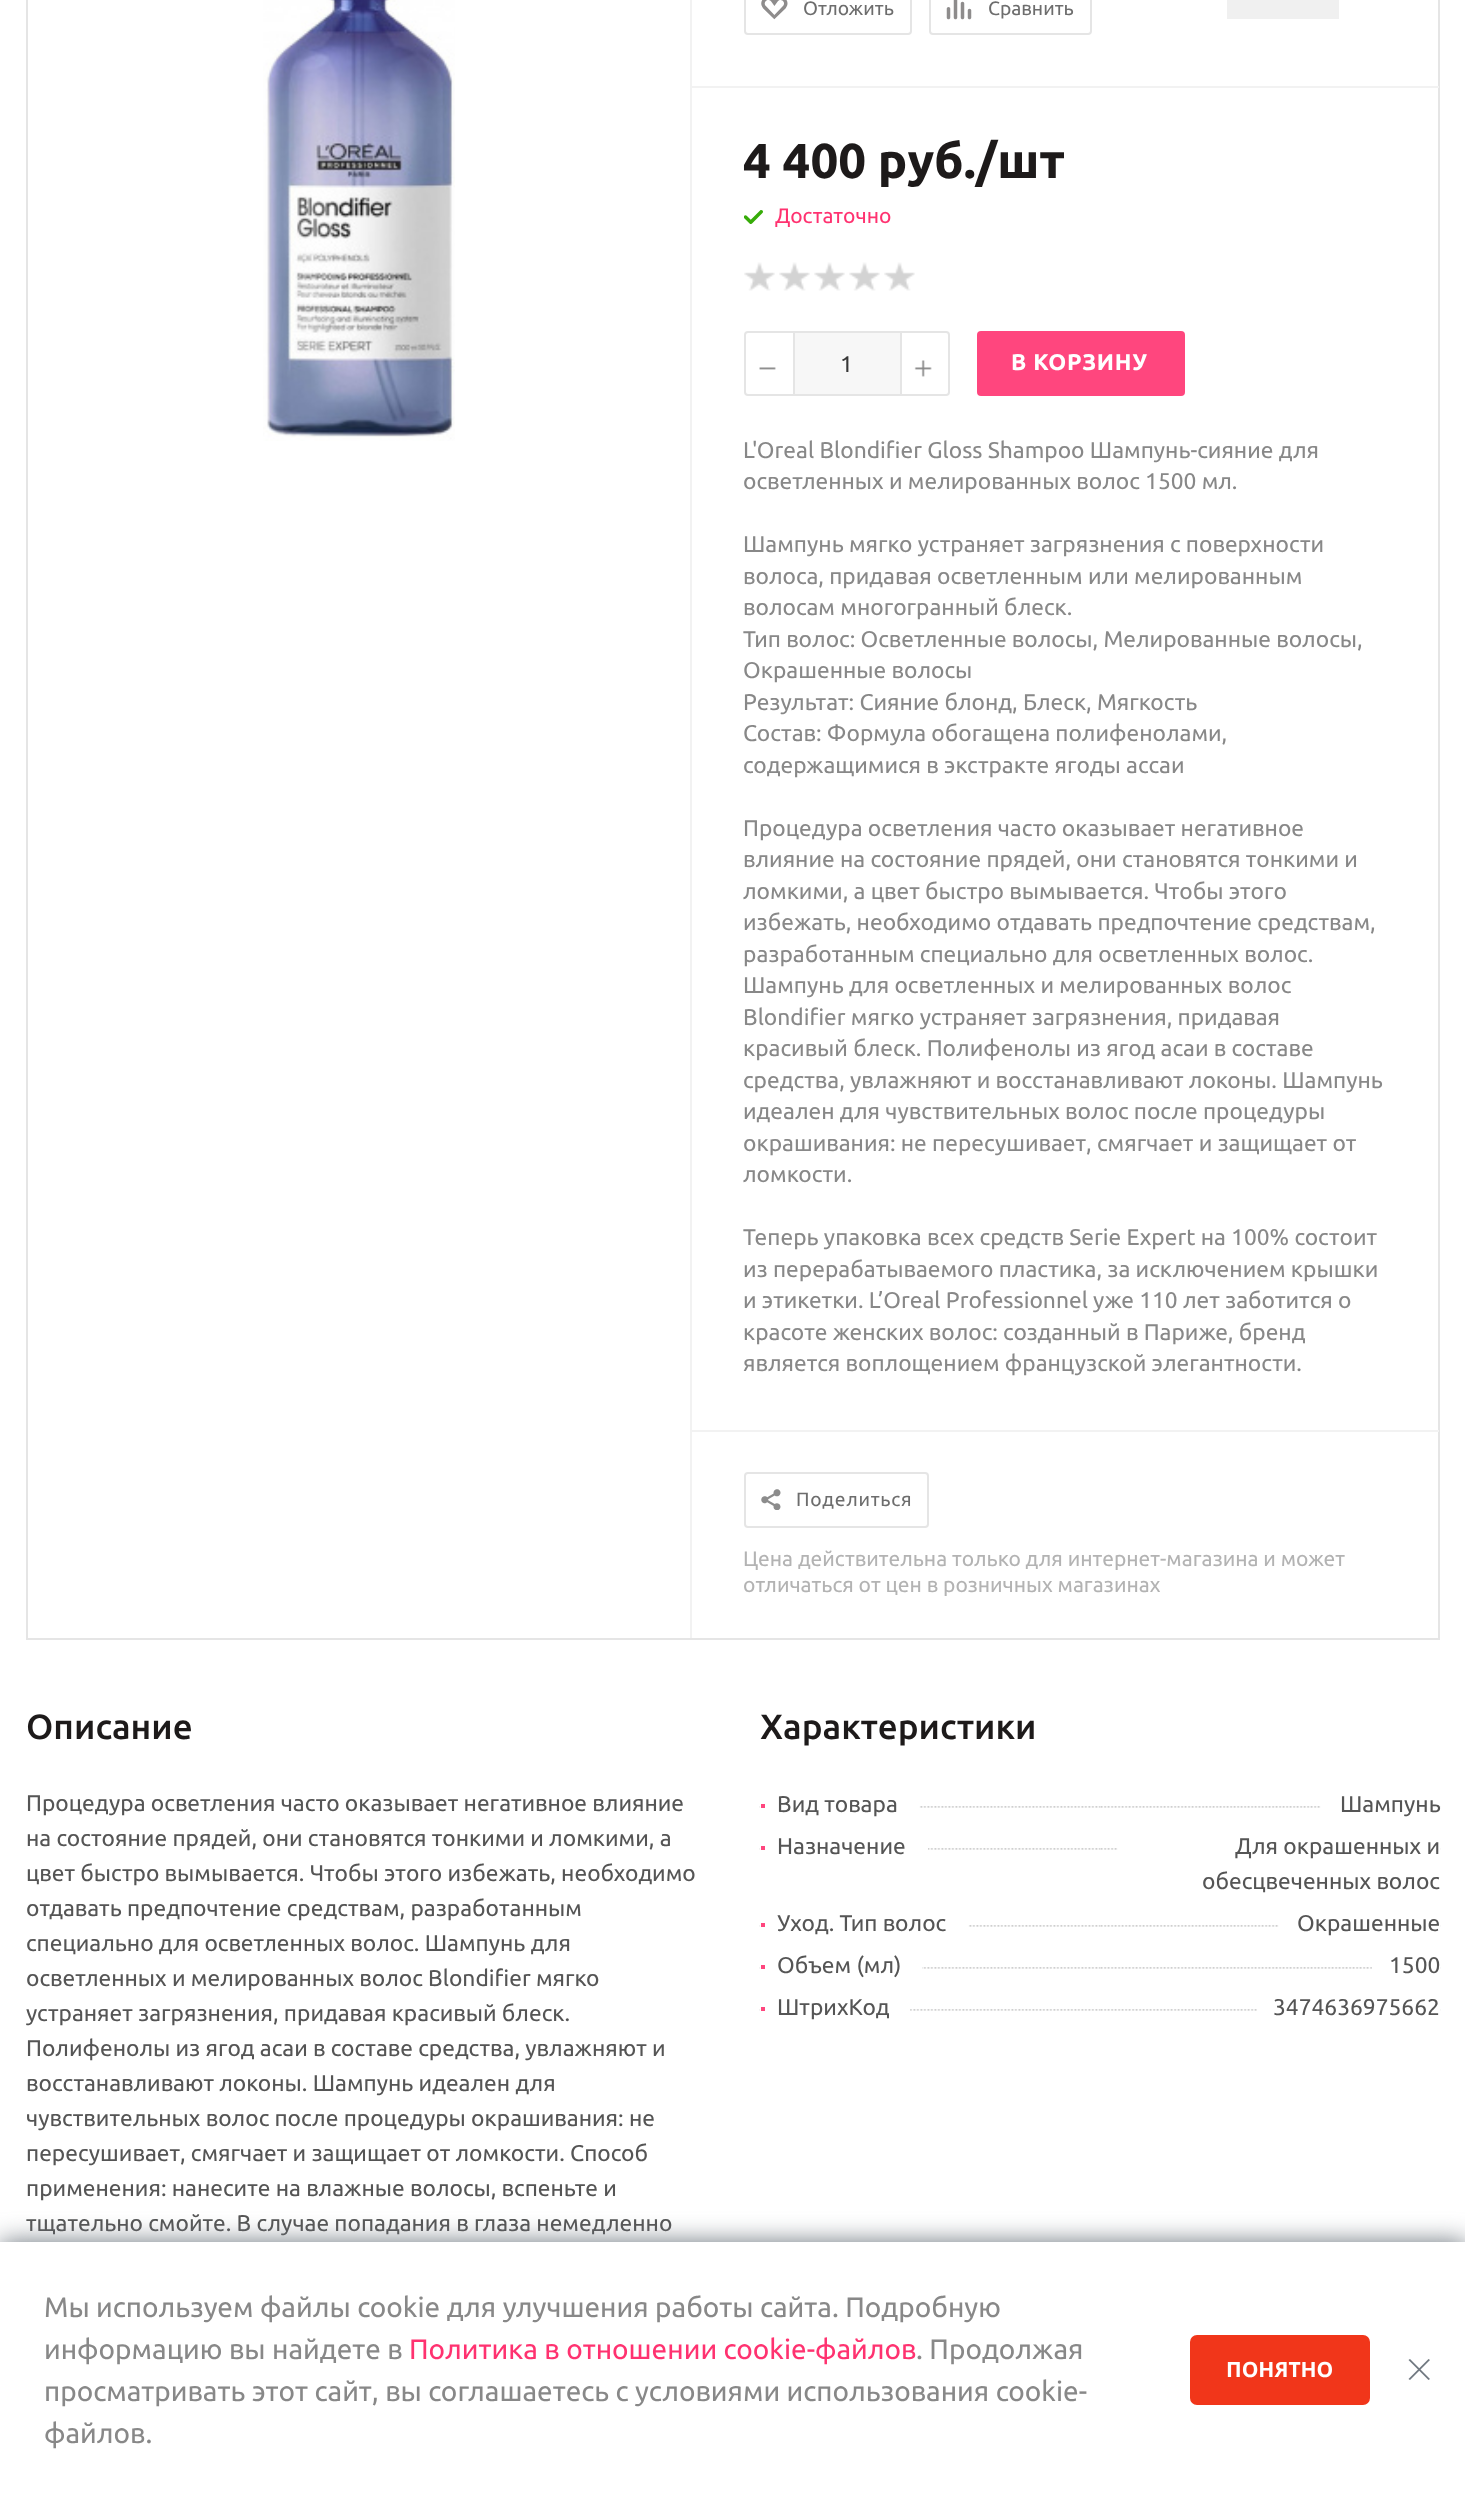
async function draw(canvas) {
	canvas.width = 1465;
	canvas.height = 2496;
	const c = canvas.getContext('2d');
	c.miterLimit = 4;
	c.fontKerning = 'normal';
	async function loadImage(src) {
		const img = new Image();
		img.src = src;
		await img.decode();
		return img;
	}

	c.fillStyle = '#fff';
	c.fillRect(0, 0, 1465, 2496);
	c.strokeStyle = '#e5e5e5';
	c.lineWidth = 2;
	c.strokeRect(27, -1, 1412, 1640);
	c.drawImage(await loadImage('img1.png'), 263, 0, 192, 441);
	for (const [x, y, w, h, color] of [
		[691, 86, 748, 2, '#f2f2f2'],
		[691, 1430, 748, 2, '#f2f2f2'],
		[690, 0, 2, 1638, '#f2f2f2'],
	]) {
		c.fillStyle = color;
		c.fillRect(x, y, w, h);
	}
	c.beginPath();
	c.roundRect(745, -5, 166, 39, 3);
	c.stroke();
	c.drawImage(await loadImage('img2.png'), 761, 0, 27, 20);
	c.font = '19.25px Ubuntu';
	c.fillStyle = '#6d6d6d';
	c.fillText('Отложить', 803, 15);
	c.beginPath();
	c.roundRect(930, -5, 161, 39, 3);
	c.stroke();
	c.drawImage(await loadImage('img3.png'), 946, 0, 26, 20);
	c.fillText('Сравнить', 988, 15);
	c.fillStyle = '#f0f0f0';
	c.fillRect(1227, 0, 112, 19);
	c.font = 'bold 49px Ubuntu';
	c.fillStyle = '#1d1a1a';
	c.fillText('4 400 руб./шт', 743, 178);
	c.drawImage(await loadImage('img4.png'), 744, 210, 19, 14);
	c.font = '21px Ubuntu';
	c.fillStyle = '#ff3270';
	c.fillText('Достаточно', 775, 223);
	c.drawImage(await loadImage('img5.png'), 744, 262, 31, 29);
	c.drawImage(await loadImage('img6.png'), 779, 262, 31, 29);
	c.drawImage(await loadImage('img5.png'), 814, 262, 31, 29);
	c.drawImage(await loadImage('img5.png'), 849, 262, 31, 29);
	c.drawImage(await loadImage('img7.png'), 884, 262, 31, 29);
	c.beginPath();
	c.roundRect(745, 332, 204, 63, 3);
	c.stroke();
	c.drawImage(await loadImage('img8.png'), 759, 367, 17, 3);
	for (const [x, y, w, h, color] of [
		[795, 333, 105, 61, '#f7f7f7'],
		[900, 333, 2, 61, '#e5e5e5'],
		[793, 333, 2, 61, '#e5e5e5'],
	]) {
		c.fillStyle = color;
		c.fillRect(x, y, w, h);
	}
	c.font = '22.75px Ubuntu';
	c.fillStyle = '#373737';
	c.fillText('1', 840, 372);
	c.drawImage(await loadImage('img9.png'), 914, 360, 18, 17);
	c.fillStyle = '#ff467e';
	c.beginPath();
	c.roundRect(977, 331, 208, 65, 4);
	c.fill();
	c.letterSpacing = '0.75px';
	c.font = 'bold 22.75px Ubuntu';
	c.fillStyle = '#fff';
	c.fillText('В КОРЗИНУ', 1011, 370);
	c.letterSpacing = '0px';
	c.font = '22.75px Ubuntu';
	c.fillStyle = '#888';
	for (const [text, x, y] of [
		['L\'Oreal Blondifier Gloss Shampoo Шампунь-сияние для', 743, 458],
		['осветленных и мелированных волос 1500 мл.', 743, 489],
		['Шампунь мягко устраняет загрязнения с поверхности', 743, 552],
		['волоса, придавая осветленным или мелированным', 743, 584],
		['волосам многогранный блеск.', 743, 615],
		['Тип волос: Осветленные волосы, Мелированные волосы,', 743, 647],
		['Окрашенные волосы', 743, 678],
		['Результат: Сияние блонд, Блеск, Мягкость', 743, 710],
		['Состав: Формула обогащена полифенолами,', 743, 741],
		['содержащимися в экстракте ягоды ассаи', 743, 773],
		['Процедура осветления часто оказывает негативное', 743, 836],
		['влияние на состояние прядей, они становятся тонкими и', 743, 867],
		['ломкими, а цвет быстро вымывается. Чтобы этого', 743, 899],
		['избежать, необходимо отдавать предпочтение средствам,', 743, 930],
		['разработанным специально для осветленных волос.', 743, 962],
		['Шампунь для осветленных и мелированных волос', 743, 993],
		['Blondifier мягко устраняет загрязнения, придавая', 743, 1025],
		['красивый блеск. Полифенолы из ягод асаи в составе', 743, 1056],
		['средства, увлажняют и восстанавливают локоны. Шампунь', 743, 1088],
		['идеален для чувствительных волос после процедуры', 743, 1119],
		['окрашивания: не пересушивает, смягчает и защищает от', 743, 1151],
		['ломкости.', 743, 1182],
		['Теперь упаковка всех средств Serie Expert на 100% состоит', 743, 1245],
		['из перерабатываемого пластика, за исключением крышки', 743, 1277],
		['и этикетки. L’Oreal Professionnel уже 110 лет заботится о', 743, 1308],
		['красоте женских волос: созданный в Париже, бренд', 743, 1340],
		['является воплощением французской элегантности.', 743, 1371],
	]) {
		c.fillText(text, x, y);
	}
	c.beginPath();
	c.roundRect(745, 1473, 183, 54, 3);
	c.stroke();
	c.drawImage(await loadImage('img10.png'), 761, 1489, 20, 21);
	c.letterSpacing = '0.75px';
	c.font = '19.25px Ubuntu';
	c.fillStyle = '#6d6d6d';
	c.fillText('Поделиться', 796, 1506);
	c.letterSpacing = '0px';
	c.font = '21px Ubuntu';
	c.fillStyle = '#b3b3b3';
	c.fillText('Цена действительна только для интернет-магазина и может', 743, 1566);
	c.fillText('отличаться от цен в розничных магазинах', 743, 1592);
	c.font = '500 35px Ubuntu';
	c.fillStyle = '#1d1a1a';
	c.fillText('Описание', 26, 1739);
	c.font = '22.75px Ubuntu';
	c.fillStyle = '#555';
	for (const [text, x, y] of [
		['Процедура осветления часто оказывает негативное влияние', 26, 1811],
		['на состояние прядей, они становятся тонкими и ломкими, а', 26, 1846],
		['цвет быстро вымывается. Чтобы этого избежать, необходимо', 26, 1881],
		['отдавать предпочтение средствам, разработанным', 26, 1916],
		['специально для осветленных волос. Шампунь для', 26, 1951],
		['осветленных и мелированных волос Blondifier мягко', 26, 1986],
		['устраняет загрязнения, придавая красивый блеск.', 26, 2021],
		['Полифенолы из ягод асаи в составе средства, увлажняют и', 26, 2056],
		['восстанавливают локоны. Шампунь идеален для', 26, 2091],
		['чувствительных волос после процедуры окрашивания: не', 26, 2126],
		['пересушивает, смягчает и защищает от ломкости. Способ', 26, 2161],
		['применения: нанесите на влажные волосы, вспеньте и', 26, 2196],
		['тщательно смойте. В случае попадания в глаза немедленно', 26, 2231],
	]) {
		c.fillText(text, x, y);
	}
	c.font = '500 35px Ubuntu';
	c.fillStyle = '#1d1a1a';
	c.fillText('Характеристики', 760, 1739);
	c.drawImage(await loadImage('img11.png'), 759, 1806, 342, 2);
	c.fillStyle = '#fff';
	c.fillRect(760, 1806, 159, 2);
	c.fillStyle = '#ff467e';
	c.fillRect(761, 1804, 4, 4);
	c.font = '22.75px Ubuntu';
	c.fillStyle = '#555';
	c.fillText('Вид товара', 777, 1812);
	c.drawImage(await loadImage('img12.png'), 1101, 1806, 340, 2);
	c.fillStyle = '#fff';
	c.fillRect(1321, 1806, 119, 2);
	c.fillStyle = '#555';
	c.fillText('Шампунь', 1340, 1812);
	c.drawImage(await loadImage('img11.png'), 759, 1848, 342, 2);
	c.fillStyle = '#fff';
	c.fillRect(760, 1848, 168, 2);
	c.fillStyle = '#ff467e';
	c.fillRect(761, 1846, 4, 4);
	c.fillStyle = '#555';
	c.fillText('Назначение', 777, 1854);
	c.drawImage(await loadImage('img12.png'), 1101, 1848, 340, 2);
	c.fillStyle = '#fff';
	c.fillRect(1118, 1848, 322, 2);
	c.fillStyle = '#555';
	c.fillText('Для окрашенных и', 1235, 1854);
	c.fillText('обесцвеченных волос', 1202, 1889);
	c.drawImage(await loadImage('img11.png'), 759, 1925, 342, 2);
	c.fillStyle = '#fff';
	c.fillRect(760, 1925, 208, 2);
	c.fillStyle = '#ff467e';
	c.fillRect(761, 1923, 4, 4);
	c.fillStyle = '#555';
	c.fillText('Уход. Тип волос', 777, 1931);
	c.drawImage(await loadImage('img12.png'), 1101, 1925, 340, 2);
	c.fillStyle = '#fff';
	c.fillRect(1279, 1925, 161, 2);
	c.fillStyle = '#555';
	c.fillText('Окрашенные', 1297, 1931);
	c.drawImage(await loadImage('img11.png'), 759, 1967, 342, 2);
	c.fillStyle = '#fff';
	c.fillRect(760, 1967, 162, 2);
	c.fillStyle = '#ff467e';
	c.fillRect(761, 1965, 4, 4);
	c.fillStyle = '#555';
	c.fillText('Объем (мл)', 777, 1973);
	c.drawImage(await loadImage('img12.png'), 1101, 1967, 340, 2);
	c.fillStyle = '#fff';
	c.fillRect(1372, 1967, 68, 2);
	c.fillStyle = '#555';
	c.fillText('1500', 1389, 1973);
	c.drawImage(await loadImage('img11.png'), 759, 2009, 342, 2);
	c.fillStyle = '#fff';
	c.fillRect(760, 2009, 150, 2);
	c.fillStyle = '#ff467e';
	c.fillRect(761, 2007, 4, 4);
	c.fillStyle = '#555';
	c.fillText('ШтрихКод', 777, 2015);
	c.drawImage(await loadImage('img12.png'), 1101, 2009, 340, 2);
	c.fillStyle = '#fff';
	c.fillRect(1257, 2009, 183, 2);
	c.fillStyle = '#555';
	c.fillText('3474636975662', 1273, 2015);
	c.fillStyle = '#6c757d';
	c.filter = 'blur(13px)';
	c.beginPath();
	c.rect(0, 2242, 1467, 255);
	c.fill();
	c.filter = 'none';
	c.fillStyle = '#fff';
	c.fillRect(0, 2242, 1465, 254);
	c.font = '28px Ubuntu';
	c.fillStyle = '#888';
	c.fillText('Мы используем файлы cookie для улучшения работы сайта. Подробную', 44, 2317);
	c.fillText('информацию вы найдете в', 44, 2359);
	c.fillStyle = '#ff3270';
	c.fillText('Политика в отношении cookie-файлов', 409, 2359);
	c.fillStyle = '#888';
	for (const [text, x, y] of [
		['. Продолжая', 916, 2359],
		['просматривать этот сайт, вы соглашаетесь с условиями использования cookie-', 44, 2401],
		['файлов.', 44, 2443],
	]) {
		c.fillText(text, x, y);
	}
	c.fillStyle = '#f1361a';
	c.beginPath();
	c.roundRect(1191, 2336, 178, 68, 6);
	c.fill();
	c.strokeStyle = '#f1361a';
	c.stroke();
	c.font = 'bold 21px Open Sans';
	c.fillStyle = '#fff';
	c.fillText('ПОНЯТНО', 1226, 2377);
	c.fillStyle = '#707880';
	c.beginPath();
	c.moveTo(1410, 2359);
	c.lineTo(1430, 2379);
	c.lineTo(1428.5, 2380);
	c.lineTo(1408.5, 2360);
	c.closePath();
	c.fill();
	c.beginPath();
	c.moveTo(1408.5, 2379);
	c.lineTo(1428.5, 2359);
	c.lineTo(1430, 2360);
	c.lineTo(1410, 2380);
	c.closePath();
	c.fill();
}

draw(document.querySelector('canvas'));
